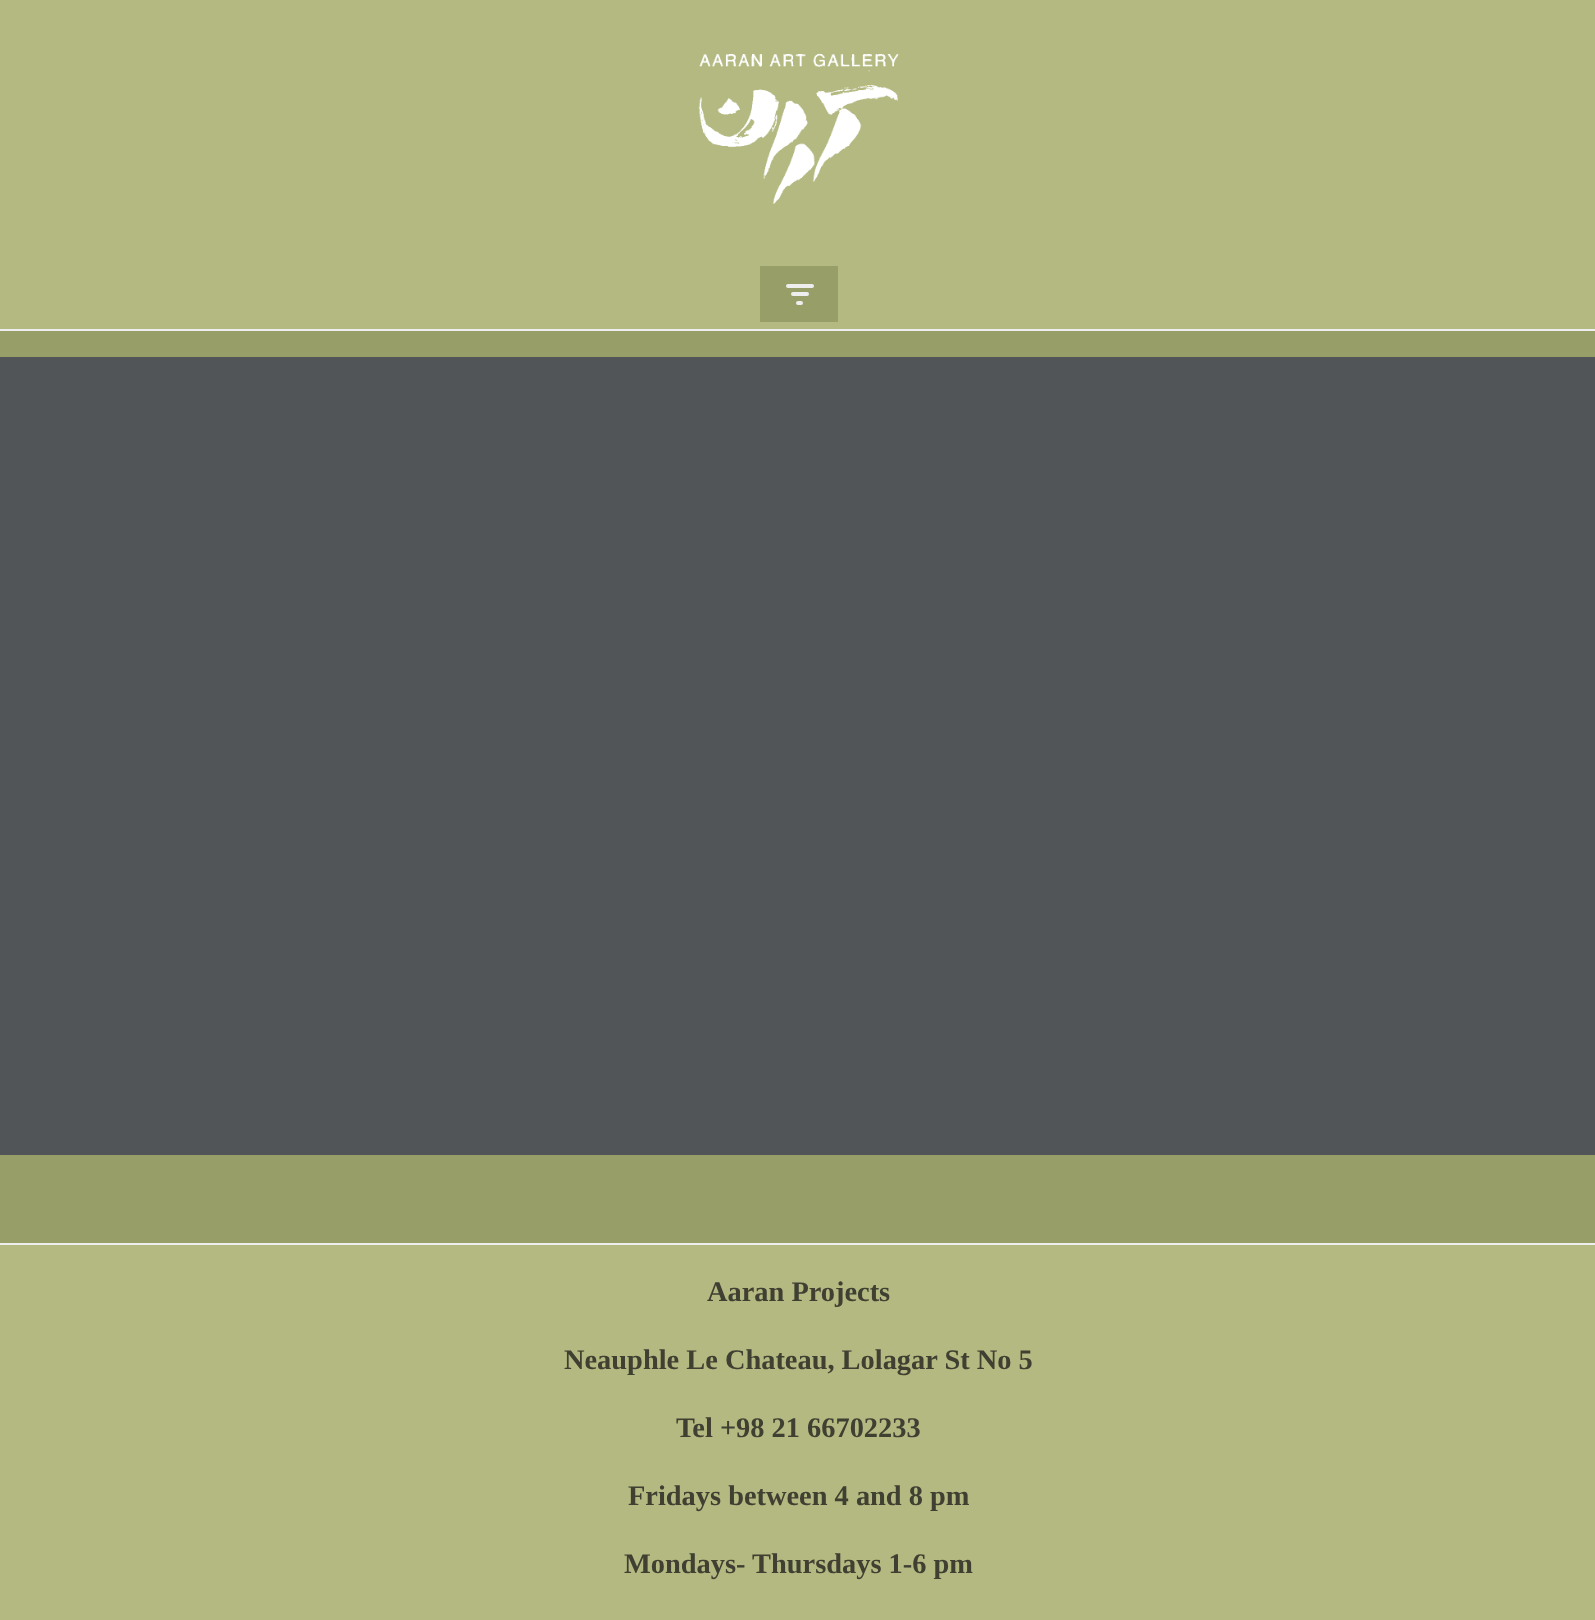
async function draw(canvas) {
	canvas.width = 1595;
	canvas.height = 1620;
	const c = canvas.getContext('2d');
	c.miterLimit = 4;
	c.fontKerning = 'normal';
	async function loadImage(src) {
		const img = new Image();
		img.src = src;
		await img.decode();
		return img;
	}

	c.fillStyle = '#989e67';
	c.fillRect(0, 0, 1595, 1620);
	c.fillStyle = '#b3b980';
	c.fillRect(0, 0, 1595, 329);
	c.drawImage(await loadImage('img1.png'), 698, 53, 201, 152);
	c.fillStyle = '#eee';
	c.fillRect(0, 329, 1595, 2);
	c.fillStyle = '#989e67';
	c.fillRect(760, 266, 78, 56);
	c.fillStyle = '#eee';
	c.beginPath();
	c.roundRect(791, 292, 18, 4, 2);
	c.fill();
	c.beginPath();
	c.roundRect(786, 284, 28, 4, 2);
	c.fill();
	c.beginPath();
	c.roundRect(796, 301, 7, 4, 2);
	c.fill();
	for (const [x, y, w, h, color] of [
		[0, 357, 1595, 798, '#515558'],
		[0, 1245, 1595, 375, '#b3b980'],
		[0, 1243, 1595, 2, '#eee'],
	]) {
		c.fillStyle = color;
		c.fillRect(x, y, w, h);
	}
	c.font = 'bold 28.4px Liberation Serif';
	c.fillStyle = '#404032';
	for (const [text, x, y] of [
		['Aaran Projects', 707, 1301],
		['Neauphle Le Chateau, Lolagar St No 5', 564, 1369],
		['Tel +98 21 66702233', 676, 1437],
		['Fridays between 4 and 8 pm', 628, 1505],
		['Mondays- Thursdays 1-6 pm', 624, 1573],
	]) {
		c.fillText(text, x, y);
	}
}

draw(document.querySelector('canvas'));
